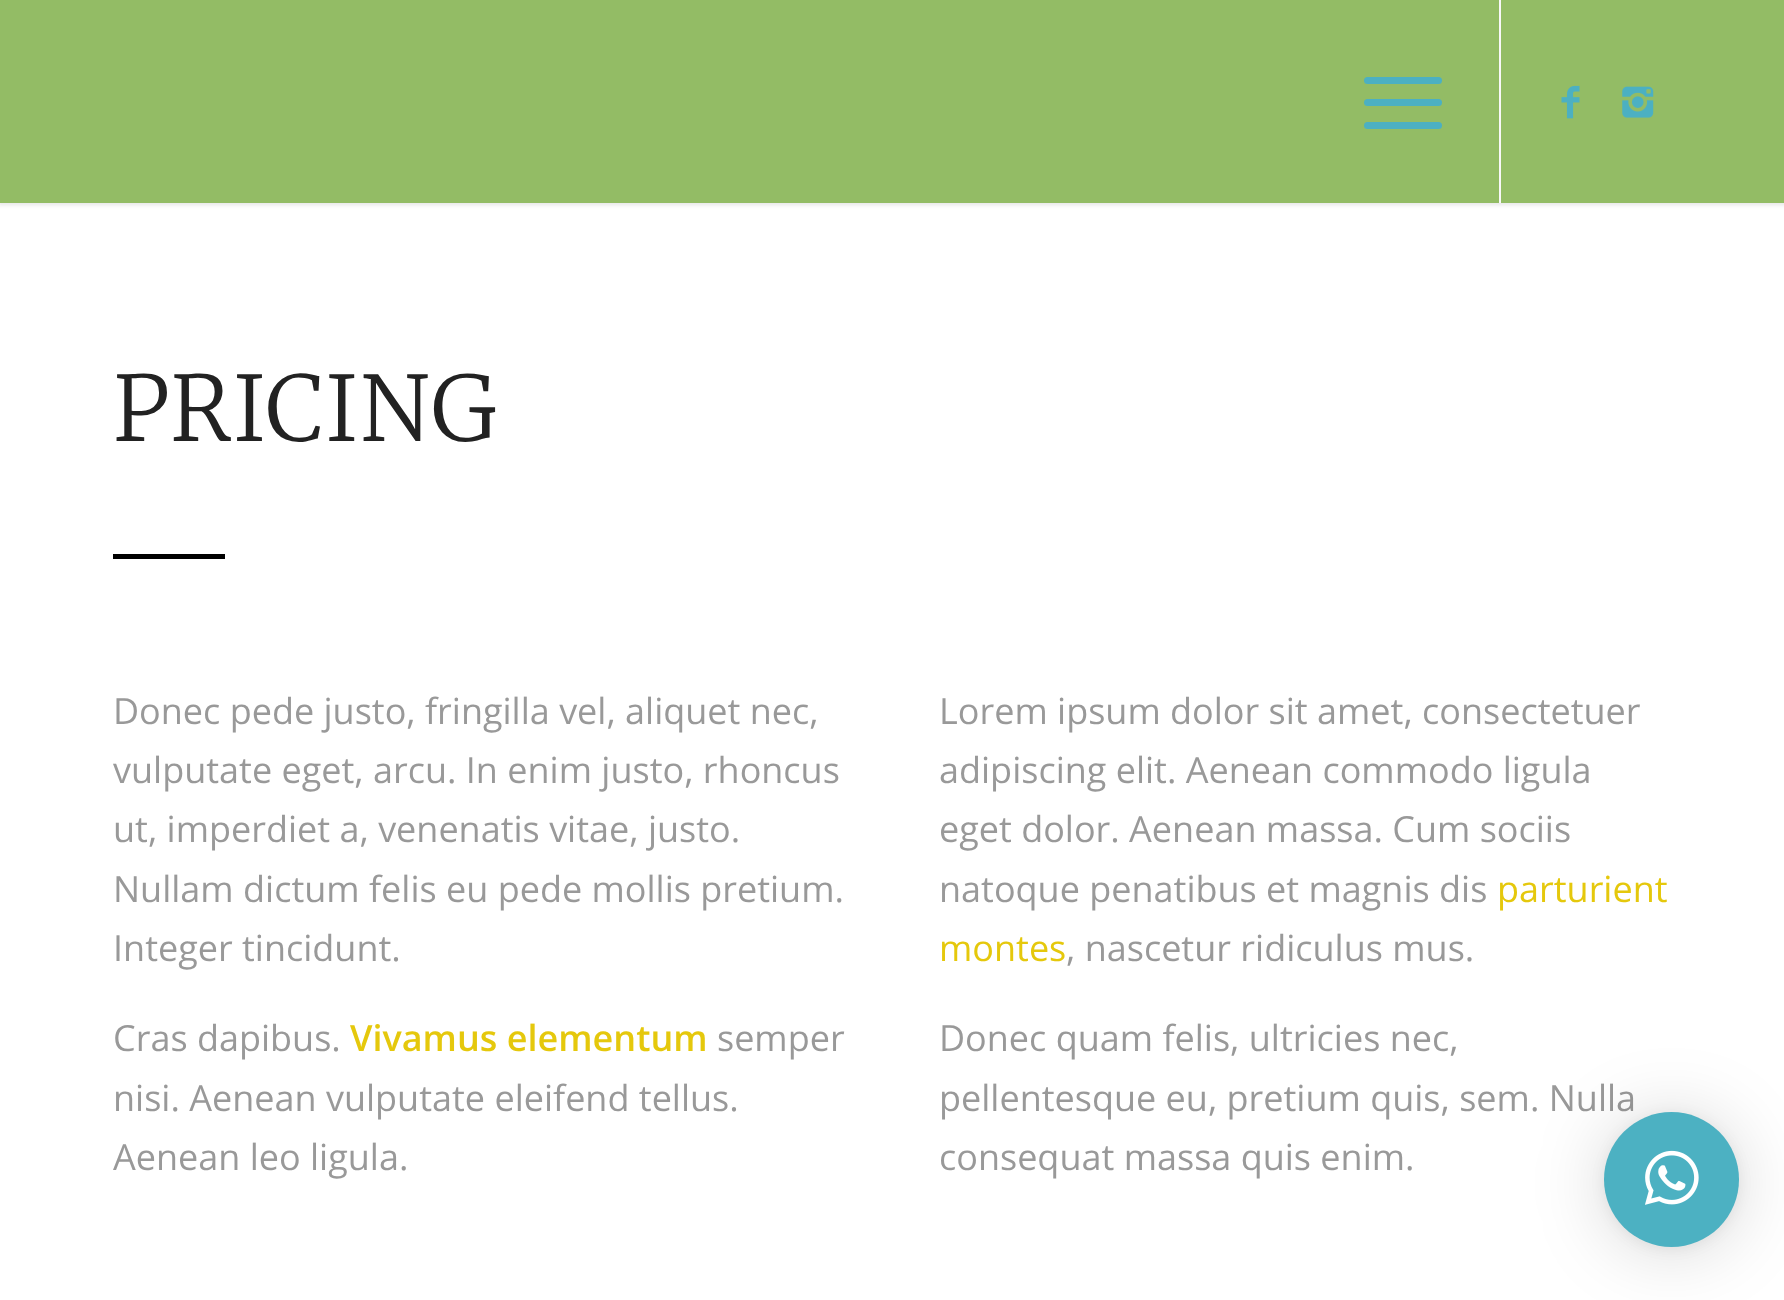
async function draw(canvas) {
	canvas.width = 1784;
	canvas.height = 1300;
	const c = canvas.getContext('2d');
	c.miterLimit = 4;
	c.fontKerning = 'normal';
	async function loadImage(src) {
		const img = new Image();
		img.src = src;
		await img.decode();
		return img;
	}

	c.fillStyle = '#fff';
	c.fillRect(0, 0, 1784, 1300);
	c.fillStyle = '#0000001a';
	c.filter = 'blur(2px)';
	c.beginPath();
	c.rect(-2, -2, 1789, 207);
	c.fill();
	c.filter = 'none';
	c.fillStyle = '#93bc65';
	c.fillRect(0, 0, 1784, 203);
	c.fillStyle = '#f8f8f8';
	c.fillRect(1499, 0, 2, 203);
	c.fillStyle = '#4cb0c2';
	c.beginPath();
	c.roundRect(1364, 99, 78, 7, 3.5);
	c.fill();
	c.beginPath();
	c.roundRect(1364, 77, 78, 7, 3.5);
	c.fill();
	c.beginPath();
	c.roundRect(1364, 122, 78, 7, 3.5);
	c.fill();
	c.drawImage(await loadImage('img1.png'), 1561, 85, 19, 34);
	c.drawImage(await loadImage('img2.png'), 1622, 86, 32, 32);
	c.letterSpacing = '2.25px';
	c.font = '300 90px Merriweather';
	c.fillStyle = '#222';
	c.fillText('PRICING', 113, 441);
	c.fillStyle = '#000';
	c.fillRect(113, 554, 112, 5);
	c.letterSpacing = '0px';
	c.font = '36px Open Sans';
	c.fillStyle = '#999';
	for (const [text, x, y] of [
		['Donec pede justo, fringilla vel, aliquet nec,', 113, 724],
		['vulputate eget, arcu. In enim justo, rhoncus', 113, 783],
		['ut, imperdiet a, venenatis vitae, justo.', 113, 842],
		['Nullam dictum felis eu pede mollis pretium.', 113, 902],
		['Integer tincidunt.', 113, 961],
		['Cras dapibus.', 113, 1051],
	]) {
		c.fillText(text, x, y);
	}
	c.font = '600 36px Open Sans';
	c.fillStyle = '#e5c80c';
	c.fillText('Vivamus elementum', 350, 1051);
	c.font = '36px Open Sans';
	c.fillStyle = '#999';
	for (const [text, x, y] of [
		['semper', 717, 1051],
		['nisi. Aenean vulputate eleifend tellus.', 113, 1111],
		['Aenean leo ligula.', 113, 1170],
		['Lorem ipsum dolor sit amet, consectetuer', 939, 724],
		['adipiscing elit. Aenean commodo ligula', 939, 783],
		['eget dolor. Aenean massa. Cum sociis', 939, 842],
		['natoque penatibus et magnis dis', 939, 902],
	]) {
		c.fillText(text, x, y);
	}
	c.fillStyle = '#e5c80c';
	c.fillText('parturient', 1497, 902);
	c.fillText('montes', 939, 961);
	c.fillStyle = '#999';
	for (const [text, x, y] of [
		[', nascetur ridiculus mus.', 1066, 961],
		['Donec quam felis, ultricies nec,', 939, 1051],
		['pellentesque eu, pretium quis, sem. Nulla', 939, 1111],
		['consequat massa quis enim.', 939, 1170],
	]) {
		c.fillText(text, x, y);
	}
	c.fillStyle = '#00000029';
	c.filter = 'blur(36px)';
	c.beginPath();
	c.roundRect(1604, 1116, 135, 135, 67.5);
	c.fill();
	c.filter = 'none';
	c.fillStyle = '#0000000f';
	c.filter = 'blur(7px)';
	c.beginPath();
	c.roundRect(1604, 1114, 135, 135, 67.5);
	c.fill();
	c.filter = 'none';
	c.fillStyle = '#4cb1c2';
	c.beginPath();
	c.arc(1671.5, 1179.5, 67.5, 0, 2 * Math.PI);
	c.fill();
	c.drawImage(await loadImage('img3.png'), 1645, 1150, 54, 55);
}

draw(document.querySelector('canvas'));
